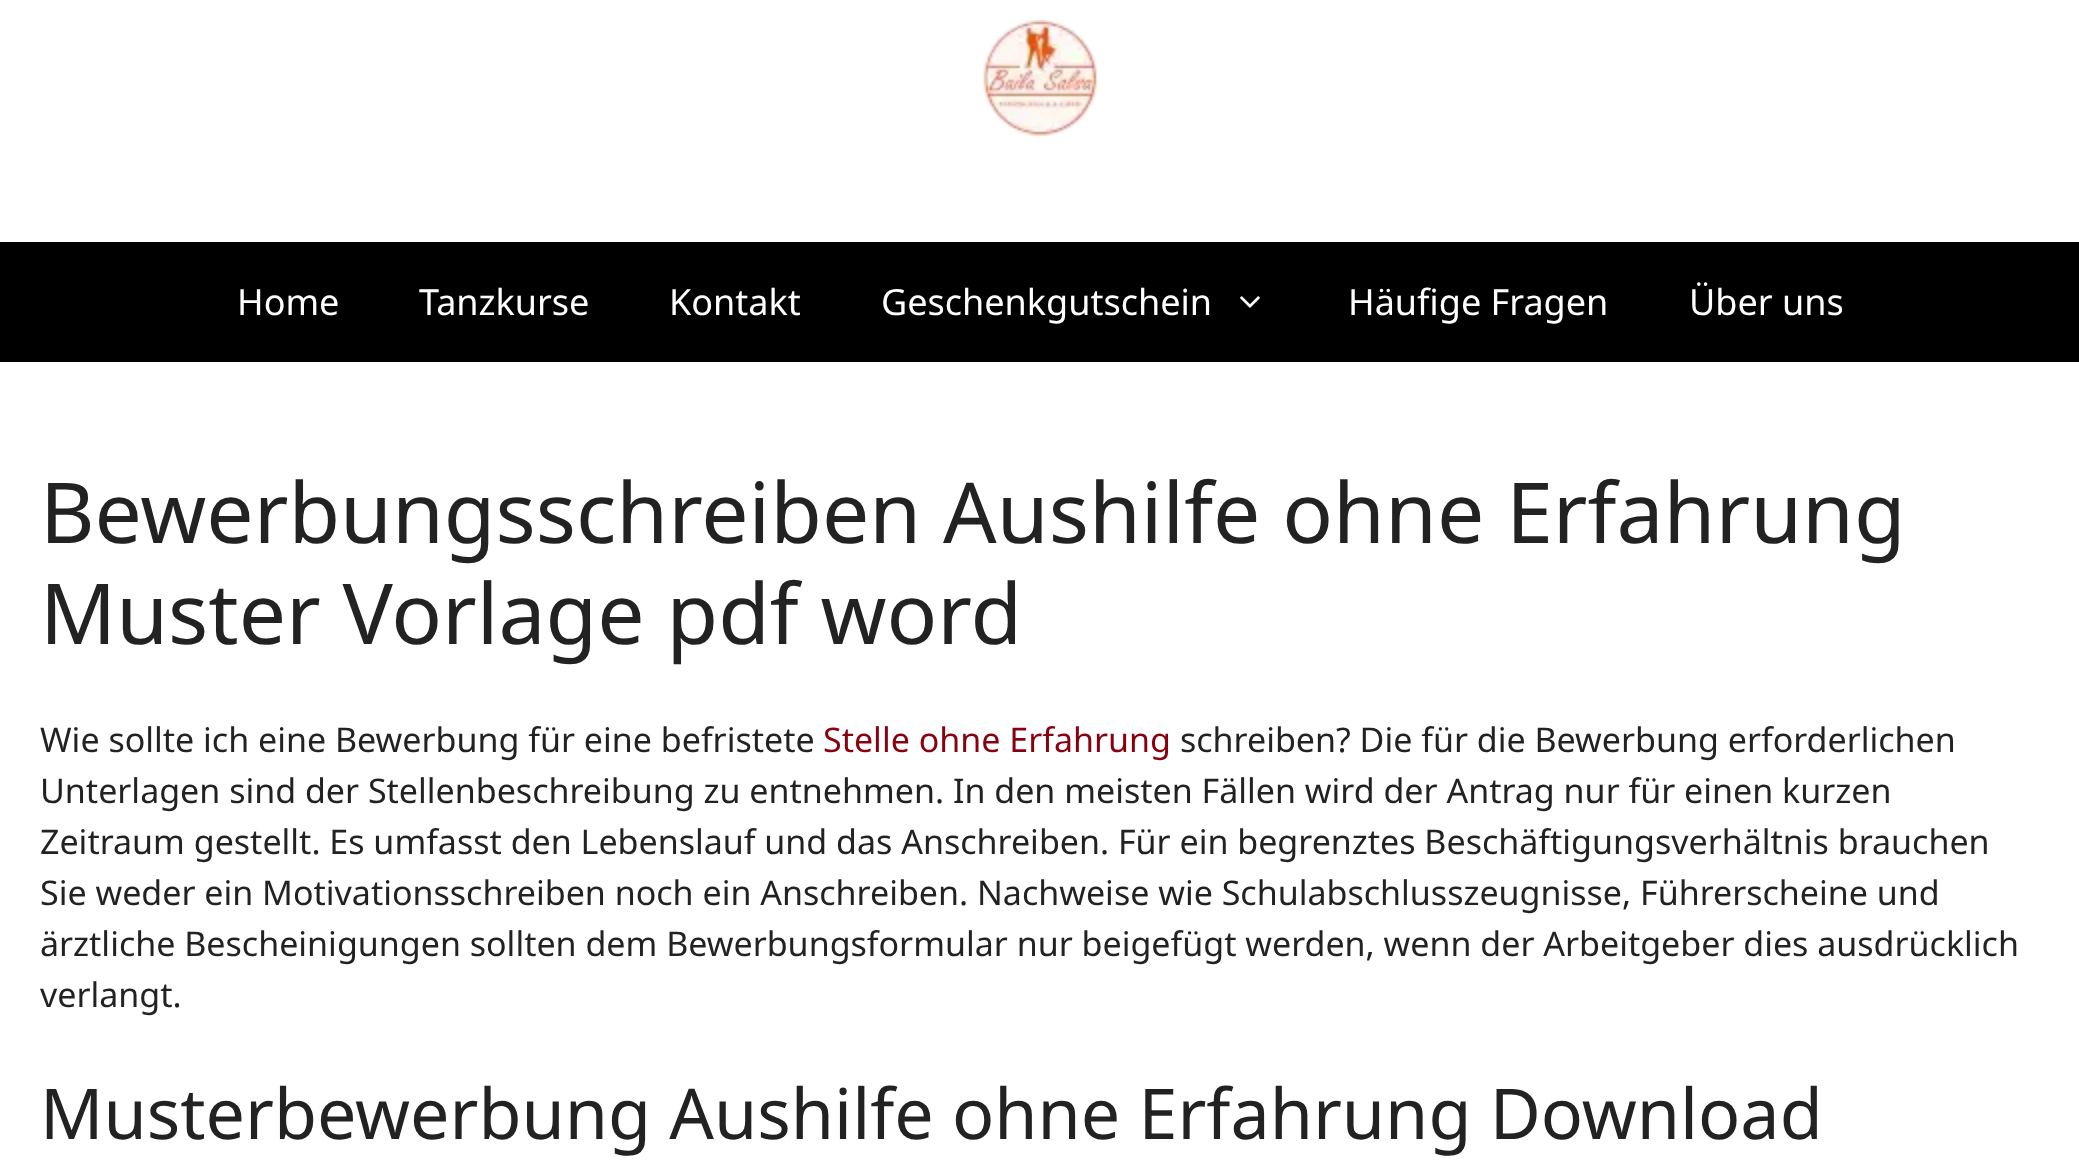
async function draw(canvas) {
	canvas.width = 2079;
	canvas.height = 1174;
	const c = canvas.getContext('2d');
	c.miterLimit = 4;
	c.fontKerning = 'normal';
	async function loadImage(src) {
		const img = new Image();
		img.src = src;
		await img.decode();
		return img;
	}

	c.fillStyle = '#000';
	c.fillRect(0, 0, 2079, 1174);
	c.fillStyle = '#fff';
	c.fillRect(0, 0, 2079, 242);
	c.drawImage(await loadImage('img1.png'), 982, 20, 117, 116);
	c.font = '36px Noto Sans';
	for (const [text, x, y] of [
		['Home', 237, 315],
		['Tanzkurse', 419, 315],
		['Kontakt', 669, 315],
		['Geschenkgutschein', 881, 315],
	]) {
		c.fillText(text, x, y);
	}
	c.drawImage(await loadImage('img2.png'), 1240, 296, 20, 12);
	c.fillText('Häufige Fragen', 1348, 315);
	c.fillText('Über uns', 1689, 315);
	c.fillRect(0, 362, 2079, 812);
	c.font = '84px Noto Sans';
	c.fillStyle = '#222';
	c.fillText('Bewerbungsschreiben Aushilfe ohne Erfahrung', 40, 543);
	c.fillText('Muster Vorlage pdf word', 40, 644);
	c.font = '34px Noto Sans';
	c.fillText('Wie sollte ich eine Bewerbung für eine befristete', 40, 752);
	c.fillStyle = '#87010e';
	c.fillText('Stelle ohne Erfahrung', 823, 752);
	c.fillStyle = '#222';
	for (const [text, x, y] of [
		['schreiben? Die für die Bewerbung erforderlichen', 1180, 752],
		['Unterlagen sind der Stellenbeschreibung zu entnehmen. In den meisten Fällen wird der Antrag nur für einen kurzen', 40, 803],
		['Zeitraum gestellt. Es umfasst den Lebenslauf und das Anschreiben. Für ein begrenztes Beschäftigungsverhältnis brauchen', 40, 854],
		['Sie weder ein Motivationsschreiben noch ein Anschreiben. Nachweise wie Schulabschlusszeugnisse, Führerscheine und', 40, 905],
		['ärztliche Bescheinigungen sollten dem Bewerbungsformular nur beigefügt werden, wenn der Arbeitgeber dies ausdrücklich', 40, 956],
		['verlangt.', 40, 1007],
	]) {
		c.fillText(text, x, y);
	}
	c.font = '70px Noto Sans';
	c.fillText('Musterbewerbung Aushilfe ohne Erfahrung Download', 40, 1139);
}

draw(document.querySelector('canvas'));
